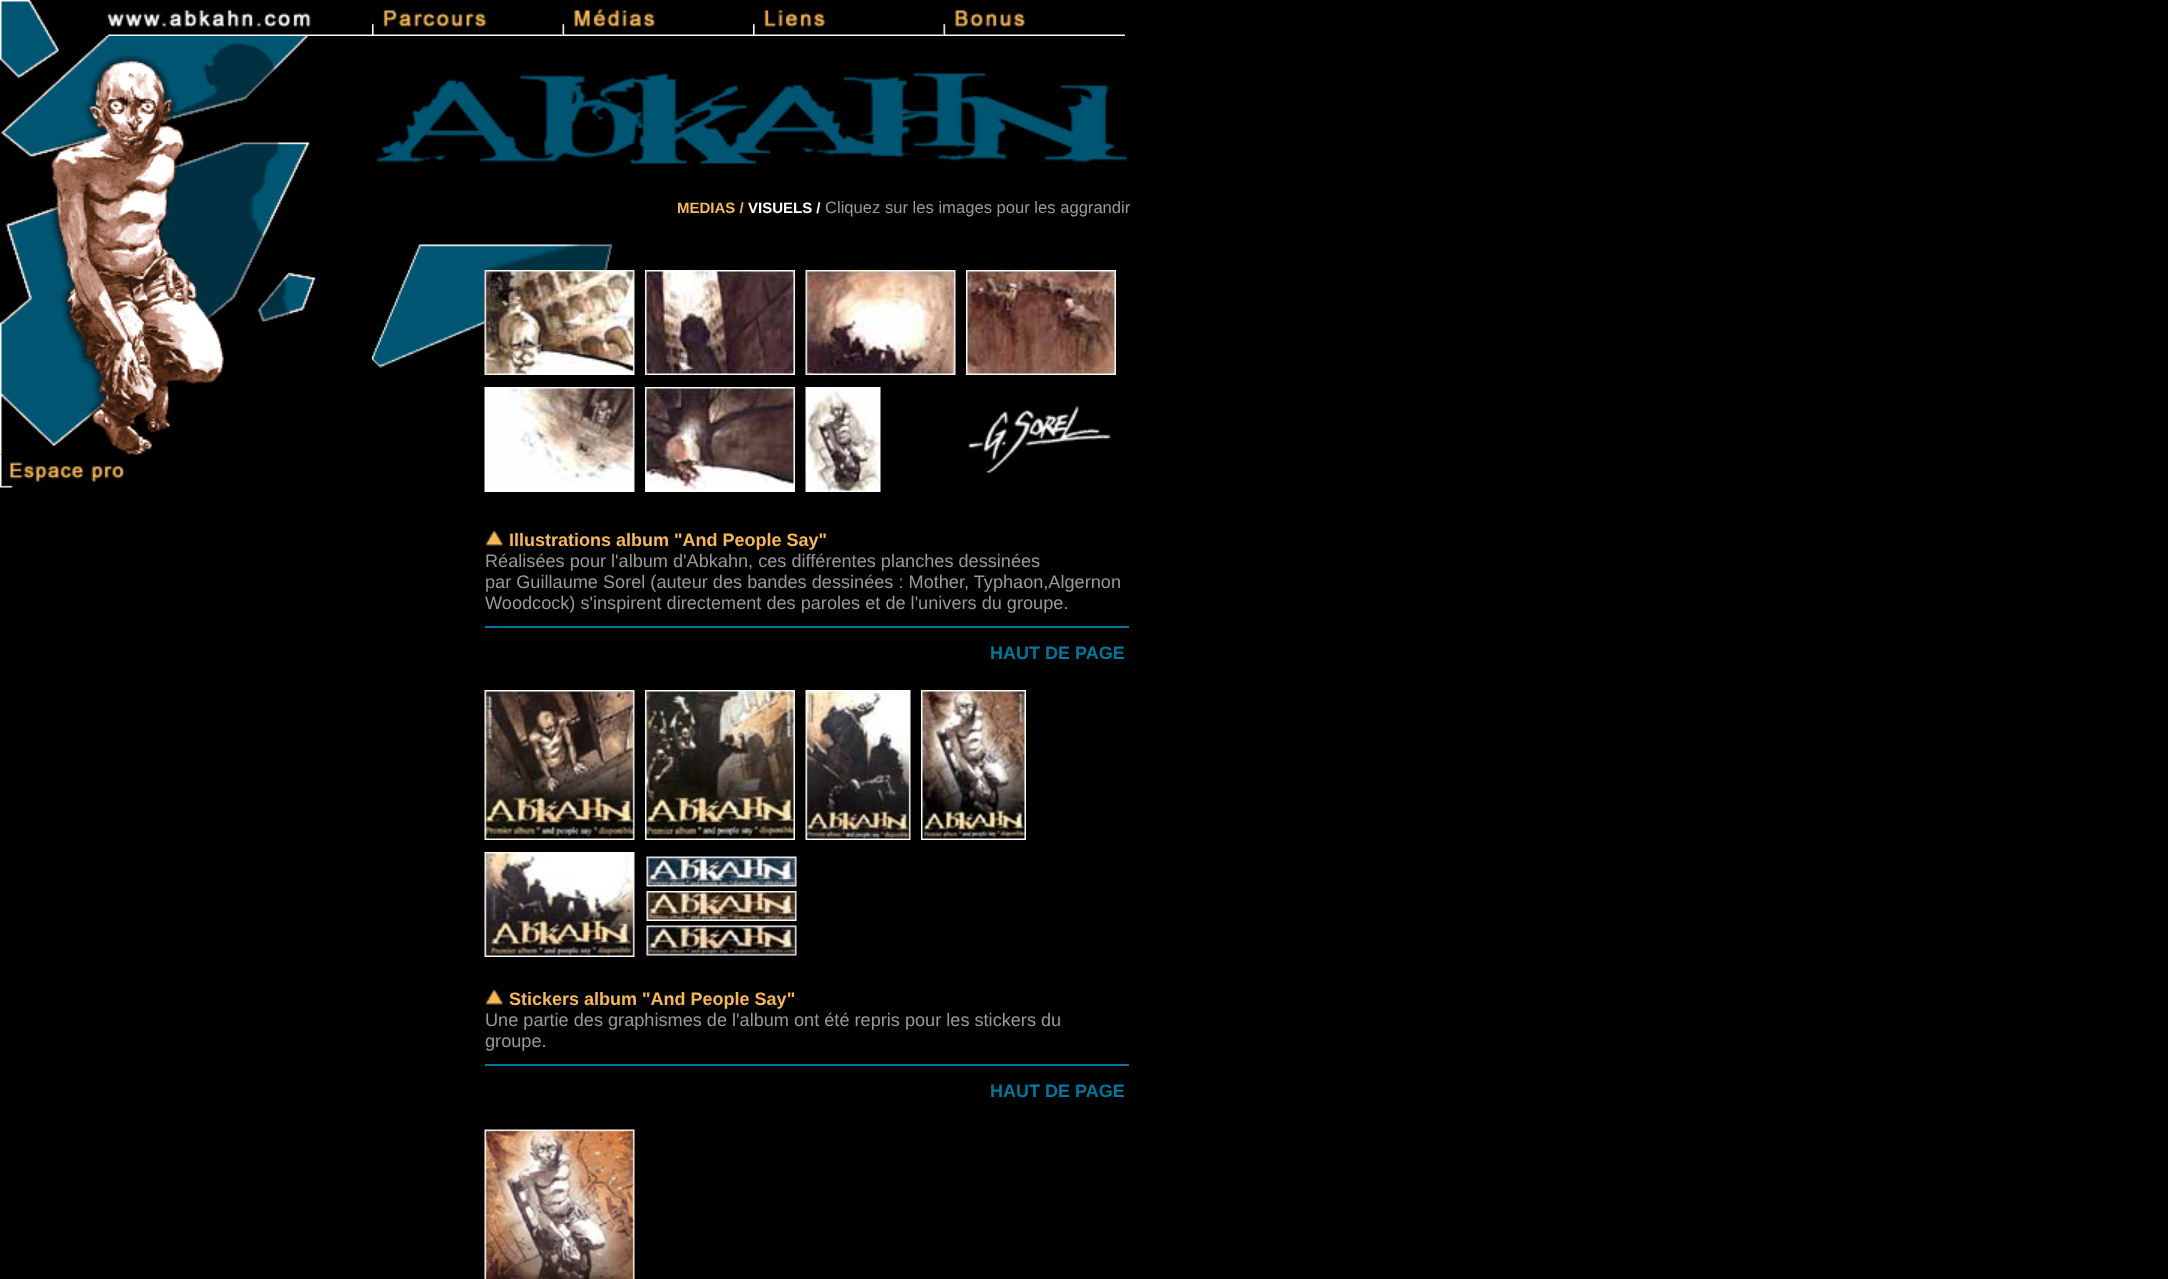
async function draw(canvas) {
	canvas.width = 2168;
	canvas.height = 1279;
	const c = canvas.getContext('2d');
	c.miterLimit = 4;
	c.fontKerning = 'normal';
	async function loadImage(src) {
		const img = new Image();
		img.src = src;
		await img.decode();
		return img;
	}

	c.fillStyle = '#000';
	c.fillRect(0, 0, 2168, 1279);
	c.drawImage(await loadImage('img1.png'), 0, 0, 318, 36);
	c.drawImage(await loadImage('img2.png'), 0, 36, 316, 419);
	c.drawImage(await loadImage('img3.png'), 0, 454, 135, 34);
	c.drawImage(await loadImage('img4.png'), 318, 34, 54, 2);
	c.drawImage(await loadImage('img5.png'), 372, 10, 191, 26);
	c.drawImage(await loadImage('img6.png'), 562, 8, 191, 28);
	c.drawImage(await loadImage('img7.png'), 753, 10, 191, 26);
	c.drawImage(await loadImage('img8.png'), 943, 10, 182, 26);
	c.drawImage(await loadImage('img9.png'), 376, 73, 751, 91);
	c.font = 'bold 15px Liberation Sans';
	c.fillStyle = '#f5b757';
	c.fillText('MEDIAS /', 677, 213);
	c.fillStyle = '#fff';
	c.fillText('VISUELS /', 748, 213);
	c.font = '16.6px Liberation Sans';
	c.fillStyle = '#999';
	c.fillText('Cliquez sur les images pour les aggrandir', 825, 213);
	c.drawImage(await loadImage('img10.png'), 408, 244, 204, 26);
	c.drawImage(await loadImage('img11.png'), 372, 270, 113, 98);
	c.drawImage(await loadImage('img12.png'), 484, 270, 151, 105);
	c.drawImage(await loadImage('img13.png'), 645, 270, 150, 105);
	c.drawImage(await loadImage('img14.png'), 805, 270, 151, 105);
	c.drawImage(await loadImage('img15.png'), 966, 270, 150, 105);
	c.drawImage(await loadImage('img16.png'), 484, 387, 151, 105);
	c.drawImage(await loadImage('img17.png'), 645, 387, 150, 105);
	c.drawImage(await loadImage('img18.png'), 805, 387, 76, 105);
	c.drawImage(await loadImage('img19.png'), 968, 406, 143, 67);
	c.drawImage(await loadImage('img20.png'), 485, 530, 18, 16);
	c.font = 'bold 18px Liberation Sans';
	c.fillStyle = '#f5b757';
	c.fillText('Illustrations album "And People Say"', 509, 546);
	c.font = '18.15px Liberation Sans';
	c.fillStyle = '#999';
	for (const [text, x, y] of [
		['Réalisées pour l\'album d\'Abkahn, ces différentes planches dessinées', 485, 567],
		['par Guillaume Sorel (auteur des bandes dessinées : Mother, Typhaon,Algernon', 485, 588],
		['Woodcock) s\'inspirent directement des paroles et de l\'univers du groupe.', 485, 609],
	]) {
		c.fillText(text, x, y);
	}
	c.fillStyle = '#00779e';
	c.fillRect(485, 626, 644, 2);
	c.font = 'bold 18px Liberation Sans';
	c.fillText('HAUT DE PAGE', 990, 659);
	c.drawImage(await loadImage('img21.png'), 484, 690, 151, 150);
	c.drawImage(await loadImage('img22.png'), 645, 690, 150, 150);
	c.drawImage(await loadImage('img23.png'), 805, 690, 106, 150);
	c.drawImage(await loadImage('img24.png'), 921, 690, 105, 150);
	c.drawImage(await loadImage('img25.png'), 484, 852, 151, 105);
	c.drawImage(await loadImage('img26.png'), 646, 856, 151, 31);
	c.drawImage(await loadImage('img27.png'), 646, 891, 151, 30);
	c.drawImage(await loadImage('img28.png'), 646, 925, 151, 31);
	c.drawImage(await loadImage('img20.png'), 485, 989, 18, 16);
	c.fillStyle = '#f5b757';
	c.fillText('Stickers album "And People Say"', 509, 1005);
	c.font = '18.15px Liberation Sans';
	c.fillStyle = '#999';
	c.fillText('Une partie des graphismes de l\'album ont été repris pour les stickers du', 485, 1026);
	c.fillText('groupe.', 485, 1047);
	c.fillStyle = '#00779e';
	c.fillRect(485, 1064, 644, 2);
	c.font = 'bold 18px Liberation Sans';
	c.fillText('HAUT DE PAGE', 990, 1097);
	c.drawImage(await loadImage('img29.png'), 484, 1129, 151, 150);
}

draw(document.querySelector('canvas'));
